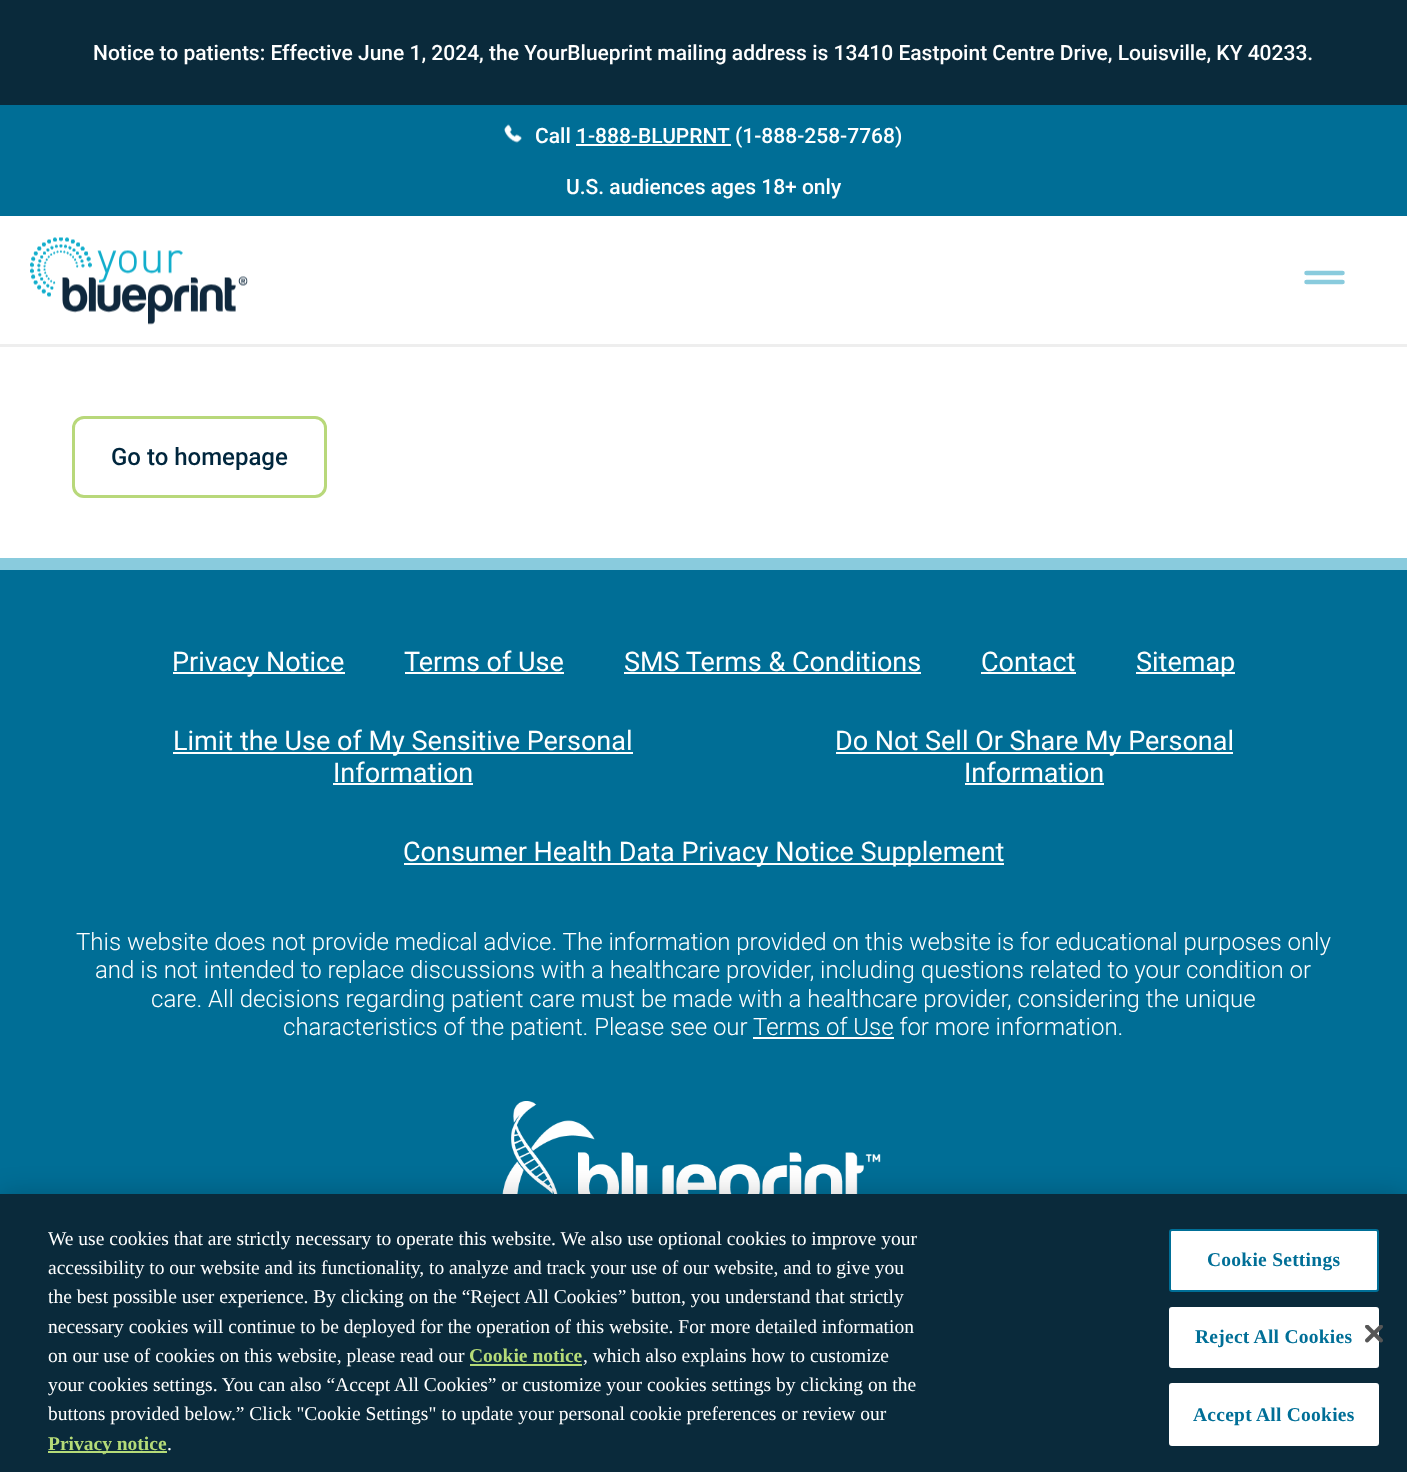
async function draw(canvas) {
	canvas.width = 1407;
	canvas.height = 1472;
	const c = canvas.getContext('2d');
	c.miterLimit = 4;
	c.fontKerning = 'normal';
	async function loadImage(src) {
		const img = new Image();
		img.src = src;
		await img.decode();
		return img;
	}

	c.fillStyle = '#fff';
	c.fillRect(0, 0, 1407, 1472);
	c.fillStyle = '#006e96';
	c.fillRect(0, 105, 1407, 111);
	c.fillStyle = '#0a2a3b';
	c.fillRect(0, 0, 1407, 105);
	c.font = '500 21px Roboto';
	c.fillStyle = '#fff';
	c.fillText('Notice to patients: Effective June 1, 2024, the YourBlueprint mailing address is 13410 Eastpoint Centre Drive, Louisville, KY 40233.', 93, 60);
	c.drawImage(await loadImage('img1.png'), 504, 124, 18, 19);
	c.fillText('Call 1-888-BLUPRNT', 535, 143);
	c.fillText('(1-888-258-7768)', 735, 143);
	c.fillRect(576, 144, 155, 2);
	c.fillText('U.S. audiences ages 18+ only', 566, 194);
	c.fillStyle = '#eee';
	c.fillRect(0, 344, 1407, 3);
	c.drawImage(await loadImage('img2.png'), 30, 237, 218, 88);
	c.beginPath();
	c.moveTo(1342.5, 273);
	c.lineTo(1306.5, 273);
	c.moveTo(1306.5, 282);
	c.lineTo(1342.5, 282);
	c.strokeStyle = '#89cbdd';
	c.lineWidth = 4.5;
	c.lineCap = 'round';
	c.stroke();
	c.beginPath();
	c.roundRect(73.5, 417.5, 252, 79, 10.5);
	c.strokeStyle = '#b8d87a';
	c.lineWidth = 3;
	c.stroke();
	c.font = '500 24px Roboto';
	c.fillStyle = '#00263d';
	c.fillText('Go to homepage', 111, 465);
	for (const [x, y, w, h, color] of [
		[0, 558, 1407, 12, '#89cbdd'],
		[0, 570, 1407, 624, '#006e96'],
		[173, 672, 172, 2, '#fff'],
	]) {
		c.fillStyle = color;
		c.fillRect(x, y, w, h);
	}
	c.font = '27px Roboto';
	c.fillText('Privacy Notice', 172, 671);
	c.fillText('Terms of Use', 404, 671);
	c.fillRect(405, 672, 159, 2);
	c.fillText('SMS Terms & Conditions', 624, 671);
	c.fillRect(624, 672, 297, 2);
	c.fillText('Contact', 981, 671);
	c.fillRect(981, 672, 95, 2);
	c.fillRect(1136, 672, 99, 2);
	c.fillText('Sitemap', 1136, 671);
	c.fillRect(173, 752, 460, 2);
	c.fillText('Limit the Use of My Sensitive Personal', 173, 750);
	c.fillText('Information', 333, 782);
	c.fillRect(333, 783, 140, 2);
	c.fillRect(836, 752, 397, 2);
	c.fillText('Do Not Sell Or Share My Personal', 835, 750);
	c.fillText('Information', 964, 782);
	c.fillRect(965, 783, 139, 2);
	c.fillRect(404, 863, 600, 2);
	c.fillText('Consumer Health Data Privacy Notice Supplement', 403, 861);
	c.font = '300 24px Roboto';
	for (const [text, x, y] of [
		['This website does not provide medical advice. The information provided on this website is for educational purposes only', 76, 950],
		['and is not intended to replace discussions with a healthcare provider, including questions related to your condition or', 95, 978],
		['care. All decisions regarding patient care must be made with a healthcare provider, considering the unique', 151, 1007],
		['characteristics of the patient. Please see our Terms of Use for more information.', 283, 1035],
	]) {
		c.fillText(text, x, y);
	}
	c.fillRect(753, 1037, 141, 2);
	c.drawImage(await loadImage('img3.png'), 502, 1101, 379, 93);
	c.fillStyle = '#00000033';
	c.filter = 'blur(13.5px)';
	c.beginPath();
	c.rect(0, 1194, 1407, 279);
	c.fill();
	c.filter = 'none';
	c.fillStyle = '#0a2a3b';
	c.fillRect(0, 1194, 1407, 278);
	c.font = '19.5px Liberation Serif';
	c.fillStyle = '#fff';
	for (const [text, x, y] of [
		['We use cookies that are strictly necessary to operate this website. We also use optional cookies to improve your', 48, 1245],
		['accessibility to our website and its functionality, to analyze and track your use of our website, and to give you', 48, 1274],
		['the best possible user experience. By clicking on the “Reject All Cookies” button, you understand that strictly', 48, 1303],
		['necessary cookies will continue to be deployed for the operation of this website. For more detailed information', 48, 1333],
		['on our use of cookies on this website, please read our', 48, 1362],
	]) {
		c.fillText(text, x, y);
	}
	c.font = 'bold 19.5px Liberation Serif';
	c.fillStyle = '#b5db78';
	c.fillText('Cookie notice', 469, 1362);
	c.fillRect(470, 1364, 112, 2);
	c.font = '19.5px Liberation Serif';
	c.fillStyle = '#fff';
	for (const [text, x, y] of [
		[', which also explains how to customize', 583, 1362],
		['your cookies settings. You can also “Accept All Cookies” or customize your cookies settings by clicking on the', 48, 1391],
		['buttons provided below.” Click "Cookie Settings" to update your personal cookie preferences or review our', 48, 1420],
	]) {
		c.fillText(text, x, y);
	}
	c.fillStyle = '#b5db78';
	c.fillRect(48, 1451, 119, 2);
	c.font = 'bold 19.5px Liberation Serif';
	c.fillText('Privacy notice', 48, 1450);
	c.font = '19.5px Liberation Serif';
	c.fillStyle = '#fff';
	c.fillText('.', 167, 1450);
	c.beginPath();
	c.roundRect(1170, 1230, 208, 61, 2);
	c.fill();
	c.strokeStyle = '#006f97';
	c.lineWidth = 2;
	c.stroke();
	c.letterSpacing = '0.25px';
	c.font = 'bold 19.5px Liberation Serif';
	c.fillStyle = '#006f97';
	c.fillText('Cookie Settings', 1207, 1266);
	c.fillStyle = '#fff';
	c.beginPath();
	c.roundRect(1170, 1308, 208, 59, 2);
	c.fill();
	c.strokeStyle = '#fff';
	c.stroke();
	c.fillStyle = '#006f97';
	c.fillText('Reject All Cookies', 1195, 1343);
	c.fillStyle = '#fff';
	c.beginPath();
	c.roundRect(1170, 1384, 208, 61, 2);
	c.fill();
	c.stroke();
	c.fillStyle = '#006f97';
	c.fillText('Accept All Cookies', 1193, 1421);
	c.drawImage(await loadImage('img4.png'), 1365, 1325, 18, 18);
}

draw(document.querySelector('canvas'));
